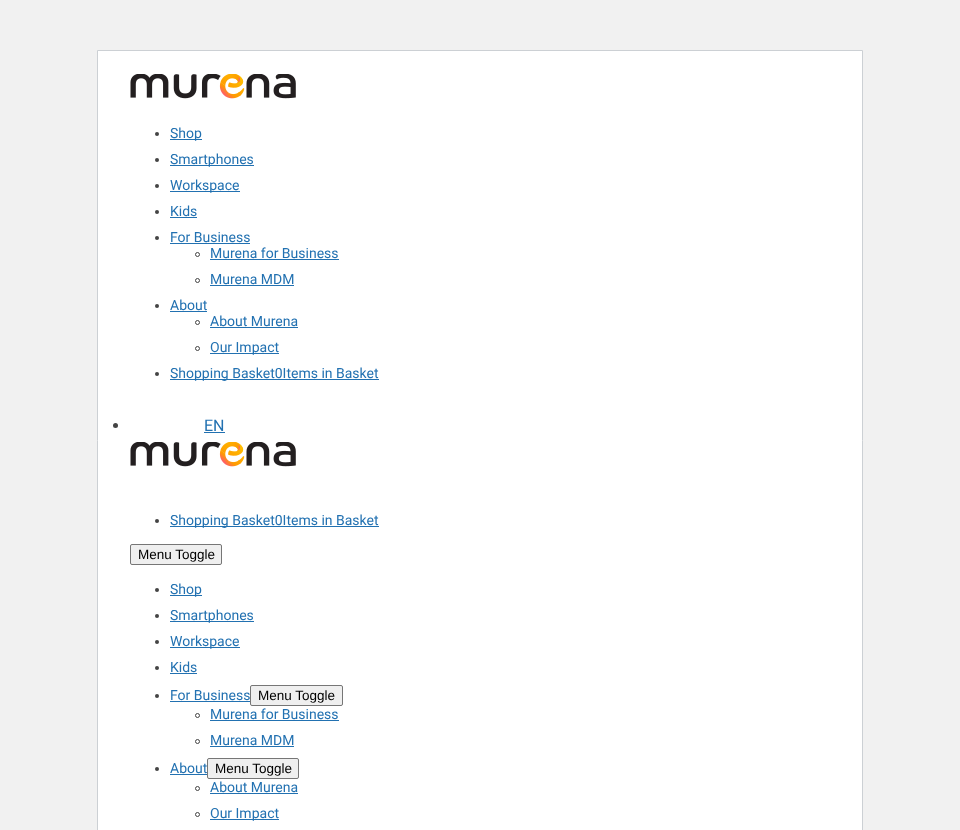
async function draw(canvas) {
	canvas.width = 960;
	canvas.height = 830;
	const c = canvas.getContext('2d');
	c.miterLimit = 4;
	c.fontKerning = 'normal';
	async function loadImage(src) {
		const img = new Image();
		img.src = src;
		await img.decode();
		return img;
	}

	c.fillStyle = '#f1f1f1';
	c.fillRect(0, 0, 960, 830);
	c.fillStyle = '#fff';
	c.beginPath();
	c.rect(97.5, 50.5, 765, 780);
	c.fill();
	c.strokeStyle = '#ccd0d4';
	c.stroke();
	c.drawImage(await loadImage('img1.png'), 130, 74, 166, 25);
	c.fillStyle = '#444';
	c.beginPath();
	c.arc(157, 134, 2, 0, 2 * Math.PI);
	c.fill();
	c.fillStyle = '#2271b1';
	c.fillRect(170, 139, 32, 1);
	c.font = '14px Roboto';
	c.fillText('Shop', 170, 138);
	c.fillStyle = '#444';
	c.beginPath();
	c.arc(157, 160, 2, 0, 2 * Math.PI);
	c.fill();
	c.fillStyle = '#2271b1';
	c.fillRect(170, 165, 84, 1);
	c.fillText('Smartphones', 170, 164);
	c.fillStyle = '#444';
	c.beginPath();
	c.arc(157, 186, 2, 0, 2 * Math.PI);
	c.fill();
	c.fillStyle = '#2271b1';
	c.fillRect(170, 191, 70, 1);
	c.fillText('Workspace', 170, 190);
	c.fillStyle = '#444';
	c.beginPath();
	c.arc(157, 212, 2, 0, 2 * Math.PI);
	c.fill();
	c.fillStyle = '#2271b1';
	c.fillText('Kids', 170, 216);
	c.fillRect(170, 217, 27, 1);
	c.fillStyle = '#444';
	c.beginPath();
	c.arc(157, 238, 2, 0, 2 * Math.PI);
	c.fill();
	c.fillStyle = '#2271b1';
	c.fillText('For Business', 170, 242);
	c.fillRect(170, 243, 80, 1);
	c.beginPath();
	c.arc(197.5, 254.5, 2, 0, 2 * Math.PI);
	c.strokeStyle = '#444';
	c.stroke();
	c.fillText('Murena for Business', 210, 258);
	c.fillRect(210, 259, 129, 1);
	c.beginPath();
	c.arc(197.5, 280.5, 2, 0, 2 * Math.PI);
	c.stroke();
	c.fillText('Murena MDM', 210, 284);
	c.fillRect(210, 285, 84, 1);
	c.fillStyle = '#444';
	c.beginPath();
	c.arc(157, 306, 2, 0, 2 * Math.PI);
	c.fill();
	c.fillStyle = '#2271b1';
	c.fillText('About', 170, 310);
	c.fillRect(170, 311, 37, 1);
	c.beginPath();
	c.arc(197.5, 322.5, 2, 0, 2 * Math.PI);
	c.stroke();
	c.fillText('About Murena', 210, 326);
	c.fillRect(210, 327, 88, 1);
	c.beginPath();
	c.arc(197.5, 348.5, 2, 0, 2 * Math.PI);
	c.stroke();
	c.fillRect(210, 353, 69, 1);
	c.fillText('Our Impact', 210, 352);
	c.fillStyle = '#444';
	c.beginPath();
	c.arc(157, 374, 2, 0, 2 * Math.PI);
	c.fill();
	c.fillStyle = '#2271b1';
	c.fillRect(170, 379, 209, 1);
	c.fillText('Shopping Basket0Items in Basket', 170, 378);
	c.fillStyle = '#444';
	c.beginPath();
	c.arc(115.5, 425.5, 2.5, 0, 2 * Math.PI);
	c.fill();
	c.font = '16px Roboto';
	c.fillStyle = '#2271b1';
	c.fillText('EN', 204, 431);
	c.fillRect(204, 432, 21, 1);
	c.drawImage(await loadImage('img1.png'), 130, 442, 166, 25);
	c.fillStyle = '#444';
	c.beginPath();
	c.arc(157, 521, 2, 0, 2 * Math.PI);
	c.fill();
	c.fillStyle = '#2271b1';
	c.fillRect(170, 526, 209, 1);
	c.font = '14px Roboto';
	c.fillText('Shopping Basket0Items in Basket', 170, 525);
	c.fillStyle = '#efefef';
	c.beginPath();
	c.roundRect(130.5, 544.5, 91, 20, 1.5);
	c.fill();
	c.strokeStyle = '#767676';
	c.stroke();
	c.font = '13.5px Liberation Sans';
	c.fillStyle = '#000';
	c.fillText('Menu Toggle', 138, 559);
	c.fillStyle = '#444';
	c.beginPath();
	c.arc(157, 590, 2, 0, 2 * Math.PI);
	c.fill();
	c.fillStyle = '#2271b1';
	c.fillRect(170, 595, 32, 1);
	c.font = '14px Roboto';
	c.fillText('Shop', 170, 594);
	c.fillStyle = '#444';
	c.beginPath();
	c.arc(157, 616, 2, 0, 2 * Math.PI);
	c.fill();
	c.fillStyle = '#2271b1';
	c.fillRect(170, 621, 84, 1);
	c.fillText('Smartphones', 170, 620);
	c.fillStyle = '#444';
	c.beginPath();
	c.arc(157, 642, 2, 0, 2 * Math.PI);
	c.fill();
	c.fillStyle = '#2271b1';
	c.fillRect(170, 647, 70, 1);
	c.fillText('Workspace', 170, 646);
	c.fillStyle = '#444';
	c.beginPath();
	c.arc(157, 668, 2, 0, 2 * Math.PI);
	c.fill();
	c.fillStyle = '#2271b1';
	c.fillText('Kids', 170, 672);
	c.fillRect(170, 673, 27, 1);
	c.fillStyle = '#444';
	c.beginPath();
	c.arc(157, 696, 2, 0, 2 * Math.PI);
	c.fill();
	c.fillStyle = '#2271b1';
	c.fillText('For Business', 170, 700);
	c.fillRect(170, 701, 80, 1);
	c.fillStyle = '#efefef';
	c.beginPath();
	c.roundRect(250.5, 685.5, 92, 20, 1.5);
	c.fill();
	c.stroke();
	c.font = '13.5px Liberation Sans';
	c.fillStyle = '#000';
	c.fillText('Menu Toggle', 258, 700);
	c.beginPath();
	c.arc(197.5, 715.5, 2, 0, 2 * Math.PI);
	c.strokeStyle = '#444';
	c.stroke();
	c.font = '14px Roboto';
	c.fillStyle = '#2271b1';
	c.fillText('Murena for Business', 210, 719);
	c.fillRect(210, 720, 129, 1);
	c.beginPath();
	c.arc(197.5, 741.5, 2, 0, 2 * Math.PI);
	c.stroke();
	c.fillText('Murena MDM', 210, 745);
	c.fillRect(210, 746, 84, 1);
	c.fillStyle = '#444';
	c.beginPath();
	c.arc(157, 769, 2, 0, 2 * Math.PI);
	c.fill();
	c.fillStyle = '#2271b1';
	c.fillText('About', 170, 773);
	c.fillRect(170, 774, 37, 1);
	c.fillStyle = '#efefef';
	c.beginPath();
	c.roundRect(207.5, 758.5, 91, 20, 1.5);
	c.fill();
	c.strokeStyle = '#767676';
	c.stroke();
	c.font = '13.5px Liberation Sans';
	c.fillStyle = '#000';
	c.fillText('Menu Toggle', 215, 773);
	c.beginPath();
	c.arc(197.5, 788.5, 2, 0, 2 * Math.PI);
	c.strokeStyle = '#444';
	c.stroke();
	c.font = '14px Roboto';
	c.fillStyle = '#2271b1';
	c.fillText('About Murena', 210, 792);
	c.fillRect(210, 793, 88, 1);
	c.beginPath();
	c.arc(197.5, 814.5, 2, 0, 2 * Math.PI);
	c.stroke();
	c.fillRect(210, 819, 69, 1);
	c.fillText('Our Impact', 210, 818);
}

draw(document.querySelector('canvas'));
